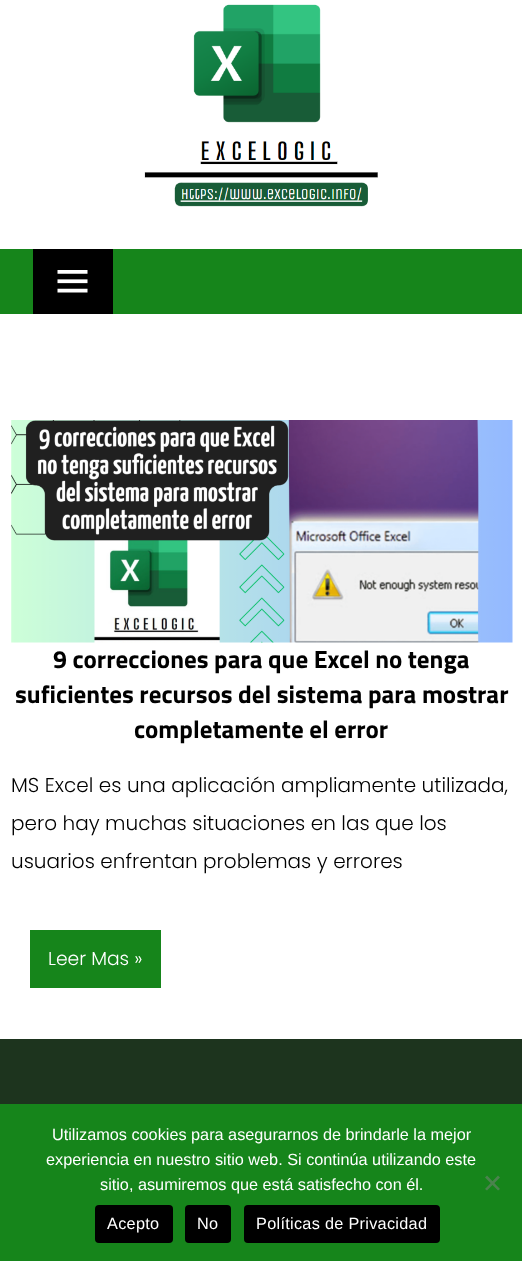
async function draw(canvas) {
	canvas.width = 522;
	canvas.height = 1261;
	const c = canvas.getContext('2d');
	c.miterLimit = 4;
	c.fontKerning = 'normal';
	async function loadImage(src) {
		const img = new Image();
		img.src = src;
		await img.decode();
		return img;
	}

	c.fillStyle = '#fff';
	c.fillRect(0, 0, 522, 1261);
	c.drawImage(await loadImage('img1.png'), 144, 4, 234, 203);
	c.fillStyle = '#16851b';
	c.fillRect(0, 249, 522, 65);
	c.fillStyle = '#000';
	c.fillRect(33, 249, 80, 65);
	c.drawImage(await loadImage('img2.png'), 57, 270, 31, 23);
	c.drawImage(await loadImage('img3.png'), 11, 420, 502, 223);
	c.font = 'bold 25px Titillium Web';
	for (const [text, x, y] of [
		['9 correcciones para que Excel no tenga', 53, 668],
		['suficientes recursos del sistema para mostrar', 15, 703],
		['completamente el error', 134, 738],
	]) {
		c.fillText(text, x, y);
	}
	c.font = '300 20px Poppins';
	for (const [text, x, y] of [
		['MS Excel es una aplicación ampliamente utilizada,', 11, 792],
		['pero hay muchas situaciones en las que los', 11, 830],
		['usuarios enfrentan problemas y errores', 11, 868],
	]) {
		c.fillText(text, x, y);
	}
	c.fillStyle = '#16851b';
	c.fillRect(30, 930, 131, 58);
	c.font = '300 18.75px Poppins';
	c.fillStyle = '#fff';
	c.fillText('Leer Mas »', 48, 965);
	c.fillStyle = '#1d341e';
	c.fillRect(0, 1039, 522, 65);
	c.fillStyle = '#16851b';
	c.fillRect(0, 1104, 522, 157);
	c.font = '16.25px Liberation Sans';
	c.fillStyle = '#fff';
	for (const [text, x, y] of [
		['Utilizamos cookies para asegurarnos de brindarle la mejor', 52, 1140],
		['experiencia en nuestro sitio web. Si continúa utilizando este', 46, 1165],
		['sitio, asumiremos que está satisfecho con él.', 100, 1190],
	]) {
		c.fillText(text, x, y);
	}
	c.fillStyle = '#4b834e';
	c.beginPath();
	c.moveTo(498, 1175.5);
	c.lineTo(500, 1177.5);
	c.lineTo(487, 1190.5);
	c.lineTo(485, 1189);
	c.closePath();
	c.fill();
	c.beginPath();
	c.moveTo(485, 1177.5);
	c.lineTo(487, 1175.5);
	c.lineTo(500, 1189);
	c.lineTo(498, 1190.5);
	c.closePath();
	c.fill();
	c.fillStyle = '#000';
	c.beginPath();
	c.roundRect(95, 1205, 78, 38, 4);
	c.fill();
	c.letterSpacing = '0.3px';
	c.fillStyle = '#fff';
	c.fillText('Acepto', 107, 1229);
	c.fillStyle = '#000';
	c.beginPath();
	c.roundRect(185, 1205, 46, 38, 4);
	c.fill();
	c.fillStyle = '#fff';
	c.fillText('No', 197, 1229);
	c.fillStyle = '#000';
	c.beginPath();
	c.roundRect(244, 1205, 196, 38, 4);
	c.fill();
	c.fillStyle = '#fff';
	c.fillText('Políticas de Privacidad', 256, 1229);
}

draw(document.querySelector('canvas'));
